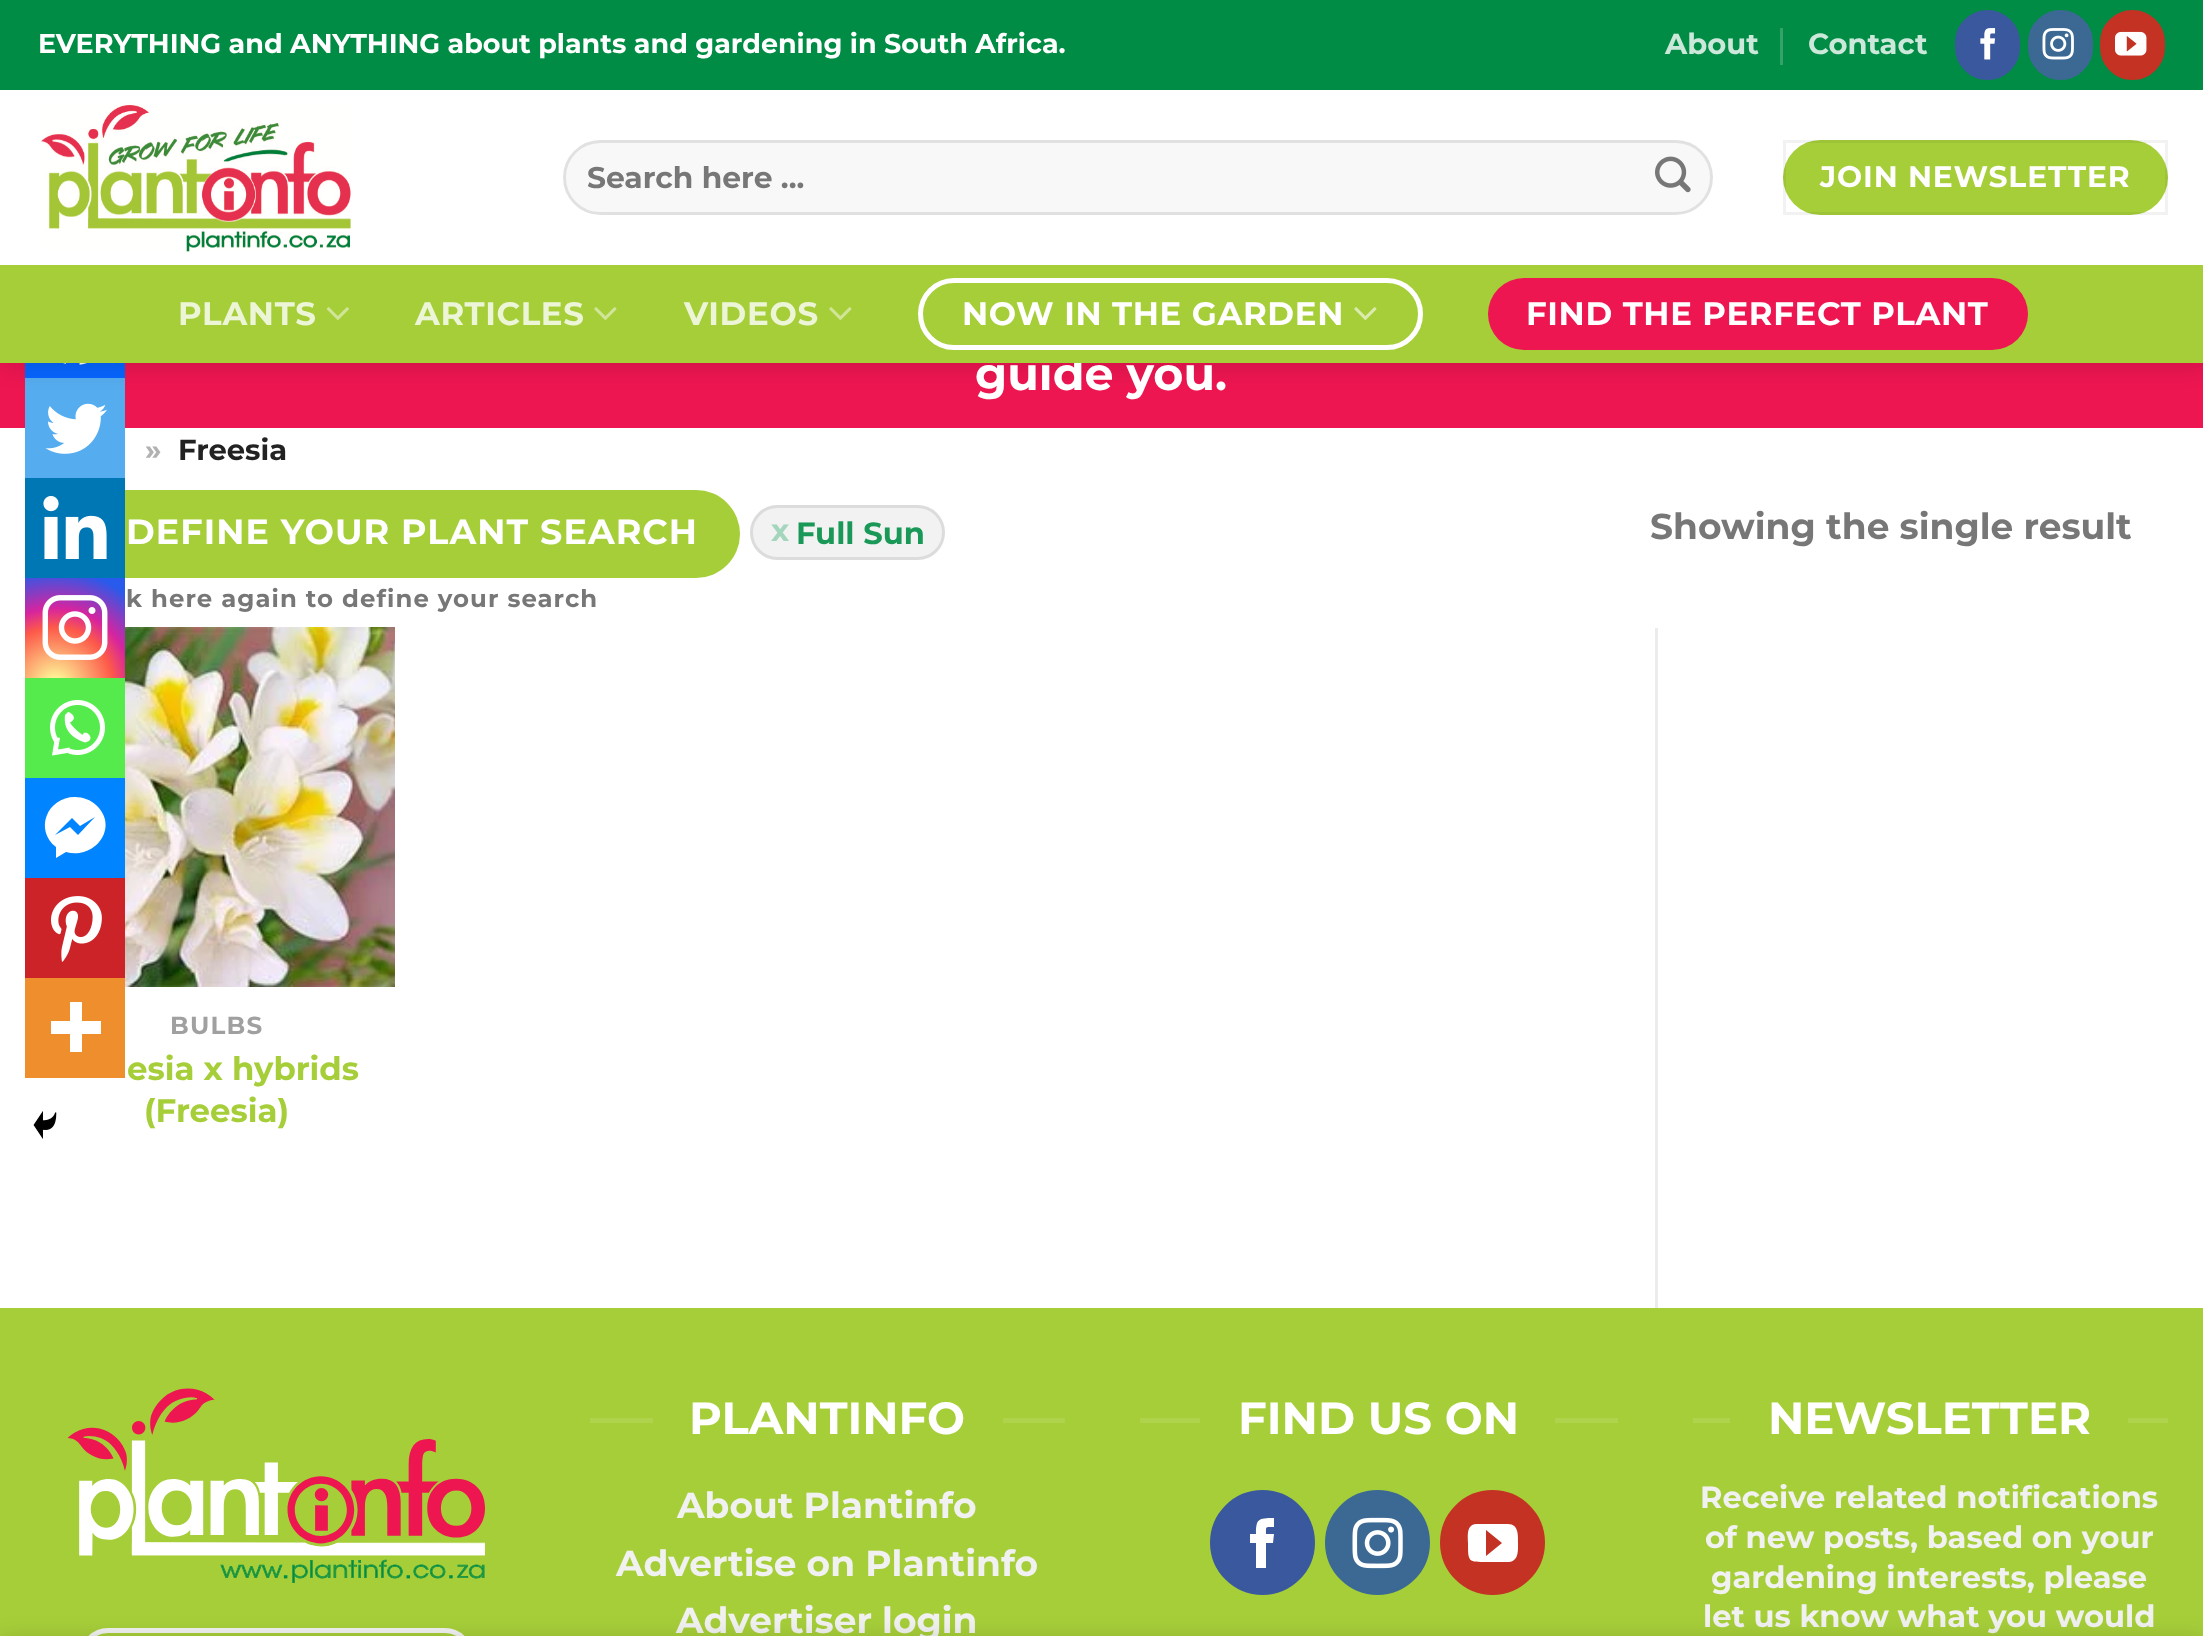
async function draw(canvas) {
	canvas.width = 2203;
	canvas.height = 1636;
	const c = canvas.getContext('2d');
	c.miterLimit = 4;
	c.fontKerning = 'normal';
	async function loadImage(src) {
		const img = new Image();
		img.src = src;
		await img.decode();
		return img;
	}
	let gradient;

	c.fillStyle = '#fff';
	c.fillRect(0, 0, 2203, 1636);
	c.fillStyle = '#ed1651';
	c.fillRect(0, 363, 2203, 65);
	c.fillStyle = '#0765fe';
	c.fillRect(25, 363, 100, 15);
	c.drawImage(await loadImage('img9.png'), 63, 363, 24, 2);
	c.fillStyle = '#55acee';
	c.fillRect(25, 378, 100, 100);
	c.drawImage(await loadImage('img10.png'), 45, 403, 62, 51);
	c.fillStyle = '#00000026';
	c.filter = 'blur(12.5px)';
	c.beginPath();
	c.rect(3, 3, 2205, 362);
	c.fill();
	c.filter = 'none';
	c.fillStyle = '#008c44';
	c.fillRect(0, 0, 2203, 90);
	c.wordSpacing = '-0.25px';
	c.font = 'bold 27px Montserrat';
	c.fillStyle = '#fff';
	c.fillText('EVERYTHING and ANYTHING about plants and gardening in South Africa.', 38, 53);
	c.wordSpacing = '0px';
	c.font = 'bold 29px Montserrat';
	c.fillStyle = '#cce8da';
	c.fillText('About', 1665, 54);
	c.fillStyle = '#33a369';
	c.fillRect(1780, 28, 3, 37);
	c.fillStyle = '#cce8da';
	c.fillText('Contact', 1808, 54);
	c.fillStyle = '#3a589d';
	c.beginPath();
	c.roundRect(1956.5, 11.5, 62, 67, 31);
	c.fill();
	c.strokeStyle = '#3a589d';
	c.lineWidth = 3;
	c.stroke();
	c.drawImage(await loadImage('img1.png'), 1980, 28, 16, 32);
	c.fillStyle = '#3b6994';
	c.beginPath();
	c.roundRect(2029.5, 11.5, 62, 67, 31);
	c.fill();
	c.strokeStyle = '#3b6994';
	c.stroke();
	c.drawImage(await loadImage('img2.png'), 2042, 28, 32, 32);
	c.fillStyle = '#c33223';
	c.beginPath();
	c.roundRect(2101.5, 11.5, 62, 67, 31);
	c.fill();
	c.strokeStyle = '#c33223';
	c.stroke();
	c.drawImage(await loadImage('img3.png'), 2115, 31, 32, 25);
	c.fillStyle = '#fff';
	c.fillRect(0, 90, 2203, 175);
	c.drawImage(await loadImage('img4.png'), 41, 103, 310, 149);
	c.fillStyle = '#f8f8f8';
	c.beginPath();
	c.roundRect(563, 140, 1150, 75, 37.5);
	c.fill();
	c.beginPath();
	c.roundRect(564.5, 141.5, 1147, 72, 36);
	c.strokeStyle = '#00000017';
	c.stroke();
	c.font = 'bold 29.75px Montserrat';
	c.fillStyle = '#777';
	c.fillText('Search here ...', 587, 188);
	c.drawImage(await loadImage('img5.png'), 1655, 156, 36, 37);
	c.fillStyle = '#a6ce39';
	c.beginPath();
	c.roundRect(1783, 140, 385, 75, 37.5);
	c.fill();
	c.strokeStyle = '#0000000d';
	c.strokeRect(1784.5, 141.5, 382, 72);
	c.letterSpacing = '0.9px';
	c.fillStyle = '#fff';
	c.fillText('JOIN NEWSLETTER', 1820, 187);
	c.letterSpacing = '0px';
	c.font = 'bold 46px Montserrat';
	c.fillText('guide you.', 975, 390);
	c.fillStyle = '#a6ce39';
	c.fillRect(0, 265, 2203, 98);
	c.letterSpacing = '0.65px';
	c.font = 'bold 32.4px Montserrat';
	c.fillStyle = '#edf5d7';
	c.fillText('PLANTS', 178, 325);
	c.drawImage(await loadImage('img6.png'), 326, 307, 23, 13);
	c.fillText('ARTICLES', 415, 325);
	c.drawImage(await loadImage('img7.png'), 594, 307, 23, 13);
	c.fillText('VIDEOS', 684, 325);
	c.drawImage(await loadImage('img7.png'), 829, 307, 23, 13);
	c.beginPath();
	c.roundRect(920.5, 280.5, 500, 67, 33.5);
	c.strokeStyle = '#fff';
	c.lineWidth = 5;
	c.stroke();
	c.fillStyle = '#fff';
	c.fillText('NOW IN THE GARDEN', 962, 325);
	c.drawImage(await loadImage('img8.png'), 1354, 307, 23, 13);
	c.fillStyle = '#ed1651';
	c.beginPath();
	c.roundRect(1488, 278, 540, 72, 36);
	c.fill();
	c.fillStyle = '#fff';
	c.fillText('FIND THE PERFECT PLANT', 1526, 325);
	c.fillStyle = '#a6ce39';
	c.beginPath();
	c.roundRect(38, 490, 702, 88, 44);
	c.fill();
	c.fillStyle = '#0077b5';
	c.fillRect(25, 478, 100, 100);
	c.drawImage(await loadImage('img11.png'), 43, 496, 64, 63);
	gradient = c.createRadialGradient(55, 685, 0, 55, 685, 128);
	gradient.addColorStop(0, '#fdf497');
	gradient.addColorStop(0.05, '#fdf497');
	gradient.addColorStop(0.45, '#fd5949');
	gradient.addColorStop(0.6, '#d6249f');
	gradient.addColorStop(0.9, '#285aeb');
	c.fillStyle = gradient;
	c.fillRect(25, 578, 100, 100);
	c.drawImage(await loadImage('img12.png'), 42, 595, 66, 65);
	c.fillStyle = '#55eb4c';
	c.fillRect(25, 678, 100, 100);
	c.drawImage(await loadImage('img13.png'), 50, 700, 55, 56);
	c.fillStyle = '#0084ff';
	c.fillRect(25, 778, 100, 100);
	c.fillStyle = '#fff';
	c.beginPath();
	c.moveTo(75, 797);
	c.bezierCurveTo(47, 797, 34, 830, 56, 847);
	c.lineTo(56, 858);
	c.lineTo(66, 852);
	c.bezierCurveTo(95, 860, 120, 827, 96, 805);
	c.bezierCurveTo(91, 800, 83, 797, 75, 797);
	c.closePath();
	c.moveTo(78, 835);
	c.lineTo(70, 827);
	c.lineTo(55, 835);
	c.lineTo(72, 818);
	c.lineTo(80, 826);
	c.lineTo(95, 817);
	c.closePath();
	c.fill();
	c.fillStyle = '#cc2329';
	c.fillRect(25, 878, 100, 100);
	c.drawImage(await loadImage('img14.png'), 51, 896, 51, 66);
	c.fillStyle = '#ee8e2d';
	c.fillRect(25, 978, 100, 100);
	c.fillStyle = '#fff';
	c.beginPath();
	c.moveTo(82, 1021);
	c.lineTo(82, 1002);
	c.lineTo(70, 1002);
	c.lineTo(70, 1021);
	c.lineTo(51, 1021);
	c.lineTo(51, 1034);
	c.lineTo(70, 1034);
	c.lineTo(70, 1052);
	c.lineTo(82, 1052);
	c.lineTo(82, 1034);
	c.lineTo(101, 1034);
	c.lineTo(101, 1021);
	c.closePath();
	c.fill('evenodd');
	c.drawImage(await loadImage('img15.png'), 33, 1111, 24, 28);
	c.letterSpacing = '0px';
	c.font = 'bold 29px Montserrat';
	c.fillStyle = '#b2b2b2';
	c.fillText('»', 145, 460);
	c.fillStyle = '#222';
	c.fillText('Freesia', 178, 460);
	c.letterSpacing = '1.05px';
	c.font = 'bold 34.9px Montserrat';
	c.fillStyle = '#fff';
	c.fillText('DEFINE YOUR PLANT SEARCH', 126, 544);
	c.font = 'bold 24.4px Montserrat';
	c.fillStyle = '#777';
	c.fillText('k here again to define your search', 126, 607);
	c.fillStyle = '#f2f2f2';
	c.beginPath();
	c.roundRect(750, 505, 195, 55, 27.5);
	c.fill();
	c.beginPath();
	c.roundRect(751.5, 506.5, 192, 52, 26);
	c.strokeStyle = '#1a1a1a1a';
	c.lineWidth = 3;
	c.stroke();
	c.letterSpacing = '0px';
	c.font = 'bold 30.6px Montserrat';
	c.fillStyle = '#a3d6bc';
	c.fillText('x', 771, 541);
	c.fillStyle = '#1a9857';
	c.fillText('Full Sun', 796, 544);
	c.font = 'bold 36px Montserrat';
	c.fillStyle = '#777';
	c.fillText('Showing the single result', 1650, 539);
	c.drawImage(await loadImage('img16.png'), 125, 627, 270, 360);
	c.letterSpacing = '1.25px';
	c.font = 'bold 24.5px Montserrat';
	c.fillStyle = '#a0a0a0';
	c.fillText('BULBS', 170, 1034);
	c.letterSpacing = '0px';
	c.font = 'bold 32.4px Montserrat';
	c.fillStyle = '#a6ce39';
	c.fillText('esia x hybrids', 127, 1080);
	c.fillText('(Freesia)', 144, 1122);
	c.fillStyle = '#ececec';
	c.fillRect(1655, 628, 3, 680);
	c.fillStyle = '#a6ce39';
	c.fillRect(0, 1308, 2203, 328);
	c.drawImage(await loadImage('img17.png'), 67, 1388, 418, 195);
	c.beginPath();
	c.roundRect(82.5, 1630.5, 388, 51, 40);
	c.strokeStyle = '#f1f1f1';
	c.lineWidth = 5;
	c.stroke();
	c.fillStyle = '#afd34d';
	c.fillRect(590, 1418, 63, 5);
	c.font = 'bold 45px Montserrat';
	c.fillStyle = '#fff';
	c.fillText('PLANTINFO', 689, 1434);
	c.fillStyle = '#afd34d';
	c.fillRect(1003, 1418, 62, 5);
	c.font = 'bold 36px Montserrat';
	c.fillStyle = '#f1f1f1';
	for (const [text, x, y] of [
		['About Plantinfo', 677, 1518],
		['Advertise on Plantinfo', 616, 1576],
		['Advertiser login', 676, 1633],
	]) {
		c.fillText(text, x, y);
	}
	c.fillStyle = '#afd34d';
	c.fillRect(1140, 1418, 60, 5);
	c.font = 'bold 45px Montserrat';
	c.fillStyle = '#fff';
	c.fillText('FIND US ON', 1238, 1434);
	c.fillStyle = '#afd34d';
	c.fillRect(1555, 1418, 63, 5);
	c.fillStyle = '#3a589d';
	c.beginPath();
	c.arc(1262.5, 1542.5, 51, 0, 2 * Math.PI);
	c.fill();
	c.strokeStyle = '#3a589d';
	c.lineWidth = 3;
	c.stroke();
	c.fillStyle = '#fff';
	c.beginPath();
	c.moveTo(1266, 1568);
	c.lineTo(1256, 1568);
	c.lineTo(1256, 1543);
	c.lineTo(1250, 1543);
	c.lineTo(1250, 1534);
	c.lineTo(1256, 1534);
	c.bezierCurveTo(1256, 1519, 1258, 1518, 1274, 1518);
	c.lineTo(1274, 1527);
	c.bezierCurveTo(1265, 1527, 1266, 1526, 1266, 1534);
	c.lineTo(1274, 1534);
	c.lineTo(1273, 1543);
	c.lineTo(1266, 1543);
	c.closePath();
	c.fill();
	c.fillStyle = '#3b6994';
	c.beginPath();
	c.arc(1377.5, 1542.5, 51, 0, 2 * Math.PI);
	c.fill();
	c.strokeStyle = '#3b6994';
	c.stroke();
	c.drawImage(await loadImage('img18.png'), 1352, 1517, 51, 52);
	c.fillStyle = '#c33223';
	c.beginPath();
	c.arc(1492.5, 1542.5, 51, 0, 2 * Math.PI);
	c.fill();
	c.strokeStyle = '#c33223';
	c.stroke();
	c.fillStyle = '#fff';
	c.beginPath();
	c.moveTo(1508, 1524);
	c.lineTo(1476, 1524);
	c.bezierCurveTo(1466, 1525, 1468, 1536, 1468, 1543);
	c.bezierCurveTo(1468, 1562, 1468, 1562, 1487, 1562);
	c.lineTo(1509, 1562);
	c.bezierCurveTo(1519, 1561, 1518, 1550, 1518, 1543);
	c.bezierCurveTo(1518, 1536, 1519, 1524, 1508, 1524);
	c.closePath();
	c.moveTo(1486, 1556);
	c.lineTo(1486, 1530);
	c.lineTo(1502, 1543);
	c.closePath();
	c.fill();
	c.fillStyle = '#afd34d';
	c.fillRect(1693, 1418, 37, 5);
	c.fillStyle = '#fff';
	c.fillText('NEWSLETTER', 1768, 1434);
	c.fillStyle = '#afd34d';
	c.fillRect(2128, 1418, 40, 5);
	c.font = 'bold 30.6px Montserrat';
	c.fillStyle = '#f1f1f1';
	for (const [text, x, y] of [
		['Receive related notifications', 1700, 1508],
		['of new posts, based on your', 1705, 1548],
		['gardening interests, please', 1711, 1588],
		['let us know what you would', 1703, 1627],
	]) {
		c.fillText(text, x, y);
	}
	c.fillStyle = '#00000024';
	c.filter = 'blur(11px)';
	c.beginPath();
	c.rect(0, 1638, 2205, 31);
	c.fill();
	c.filter = 'none';
}

draw(document.querySelector('canvas'));
